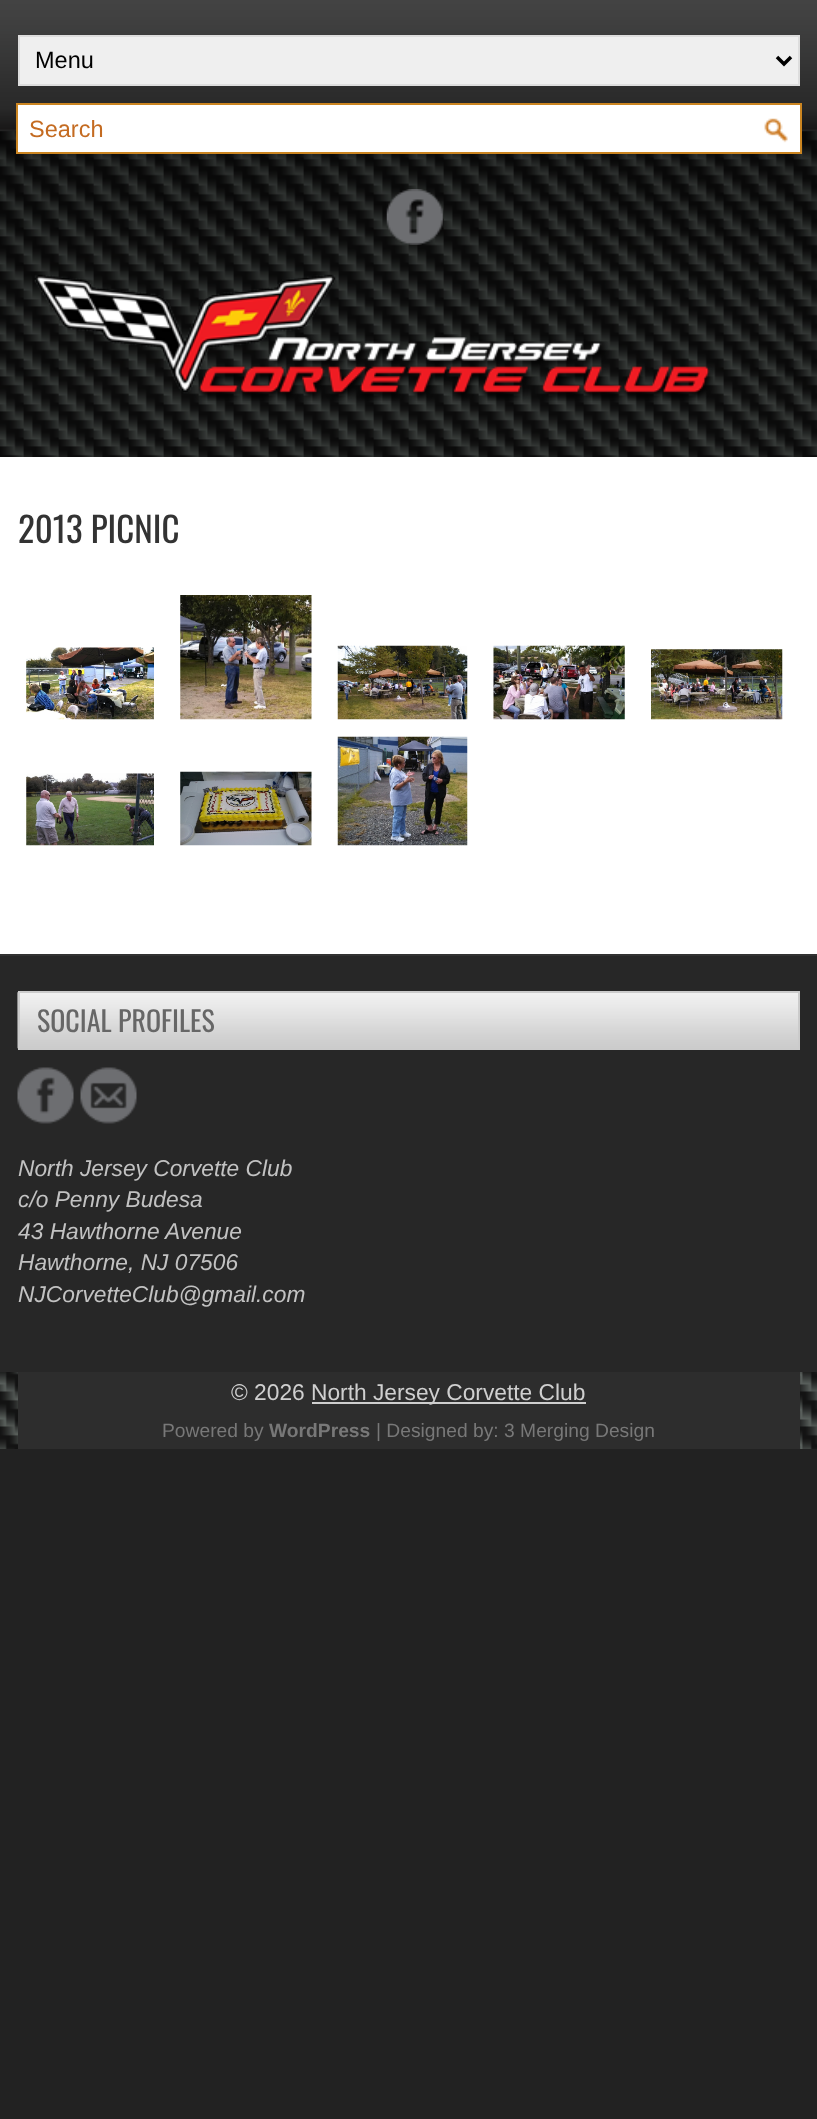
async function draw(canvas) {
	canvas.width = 817;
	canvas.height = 2119;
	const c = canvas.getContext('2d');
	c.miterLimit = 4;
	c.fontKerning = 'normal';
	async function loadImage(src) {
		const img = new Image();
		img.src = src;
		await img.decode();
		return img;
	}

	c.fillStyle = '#222';
	c.fillRect(0, 0, 817, 2119);
	c.drawImage(await loadImage('img1.png'), 0, 0, 817, 130);
	c.drawImage(await loadImage('img2.png'), 0, 131, 817, 1318);
	c.fillStyle = '#efefef';
	c.beginPath();
	c.rect(19, 36, 780, 49);
	c.fill();
	c.strokeStyle = '#ddd';
	c.lineWidth = 2;
	c.stroke();
	c.beginPath();
	c.moveTo(777, 57);
	c.lineTo(784, 64);
	c.lineTo(791, 57);
	c.strokeStyle = '#000';
	c.lineWidth = 3.5;
	c.stroke();
	c.font = '23.5px Liberation Sans';
	c.fillStyle = '#000';
	c.fillText('Menu', 35, 68);
	c.fillStyle = '#fff';
	c.fillRect(18, 105, 782, 47);
	c.drawImage(await loadImage('img3.png'), 764, 118, 24, 25);
	c.strokeStyle = '#cb8521';
	c.lineWidth = 2;
	c.strokeRect(17, 104, 784, 49);
	c.fillStyle = '#c46b21';
	c.fillText('Search', 29, 137);
	c.drawImage(await loadImage('img4.png'), 386, 189, 57, 56);
	c.drawImage(await loadImage('img5.png'), 34, 274, 679, 127);
	c.fillStyle = '#fff';
	c.fillRect(0, 457, 817, 497);
	c.font = '35px Oswald';
	c.fillStyle = '#333';
	c.fillText('2013 PICNIC', 18, 543);
	c.drawImage(await loadImage('img6.png'), 26, 647, 128, 73);
	c.drawImage(await loadImage('img7.png'), 180, 595, 132, 125);
	c.drawImage(await loadImage('img8.png'), 337, 645, 131, 75);
	c.drawImage(await loadImage('img9.png'), 493, 645, 132, 75);
	c.drawImage(await loadImage('img10.png'), 651, 649, 132, 71);
	c.drawImage(await loadImage('img11.png'), 26, 773, 128, 73);
	c.drawImage(await loadImage('img12.png'), 180, 771, 132, 75);
	c.drawImage(await loadImage('img13.png'), 337, 736, 131, 110);
	c.fillStyle = '#272727';
	c.fillRect(0, 956, 817, 416);
	c.fillStyle = '#323232';
	c.fillRect(0, 954, 817, 2);
	c.drawImage(await loadImage('img14.png'), 17, 992, 781, 57);
	c.strokeStyle = '#cbcbcb';
	c.strokeRect(19, 992, 780, 57);
	c.font = '28px Oswald';
	c.fillStyle = '#676767';
	c.fillText('SOCIAL PROFILES', 37, 1032);
	c.drawImage(await loadImage('img15.png'), 17, 1067, 57, 57);
	c.drawImage(await loadImage('img16.png'), 80, 1067, 57, 57);
	c.font = 'italic 22.75px Liberation Sans';
	c.fillStyle = '#c2c2c2';
	for (const [text, x, y] of [
		['North Jersey Corvette Club', 18, 1176],
		['c/o Penny Budesa', 18, 1207],
		['43 Hawthorne Avenue', 18, 1239],
		['Hawthorne, NJ 07506', 18, 1270],
		['NJCorvetteClub@gmail.com', 18, 1302],
	]) {
		c.fillText(text, x, y);
	}
	c.fillStyle = '#2d2d2d';
	c.fillRect(18, 1372, 782, 77);
	c.font = '22.75px Liberation Sans';
	c.fillStyle = '#cfcfcf';
	c.fillText('© 2026', 231, 1400);
	c.fillRect(312, 1402, 274, 2);
	c.fillText('North Jersey Corvette Club', 311, 1400);
	c.font = '19.25px Liberation Sans';
	c.fillStyle = '#787878';
	c.fillText('Powered by', 162, 1437);
	c.font = 'bold 19.25px Liberation Sans';
	c.fillText('WordPress', 269, 1437);
	c.font = '19.25px Liberation Sans';
	c.fillText('| Designed by: 3 Merging Design', 376, 1437);
}

draw(document.querySelector('canvas'));
